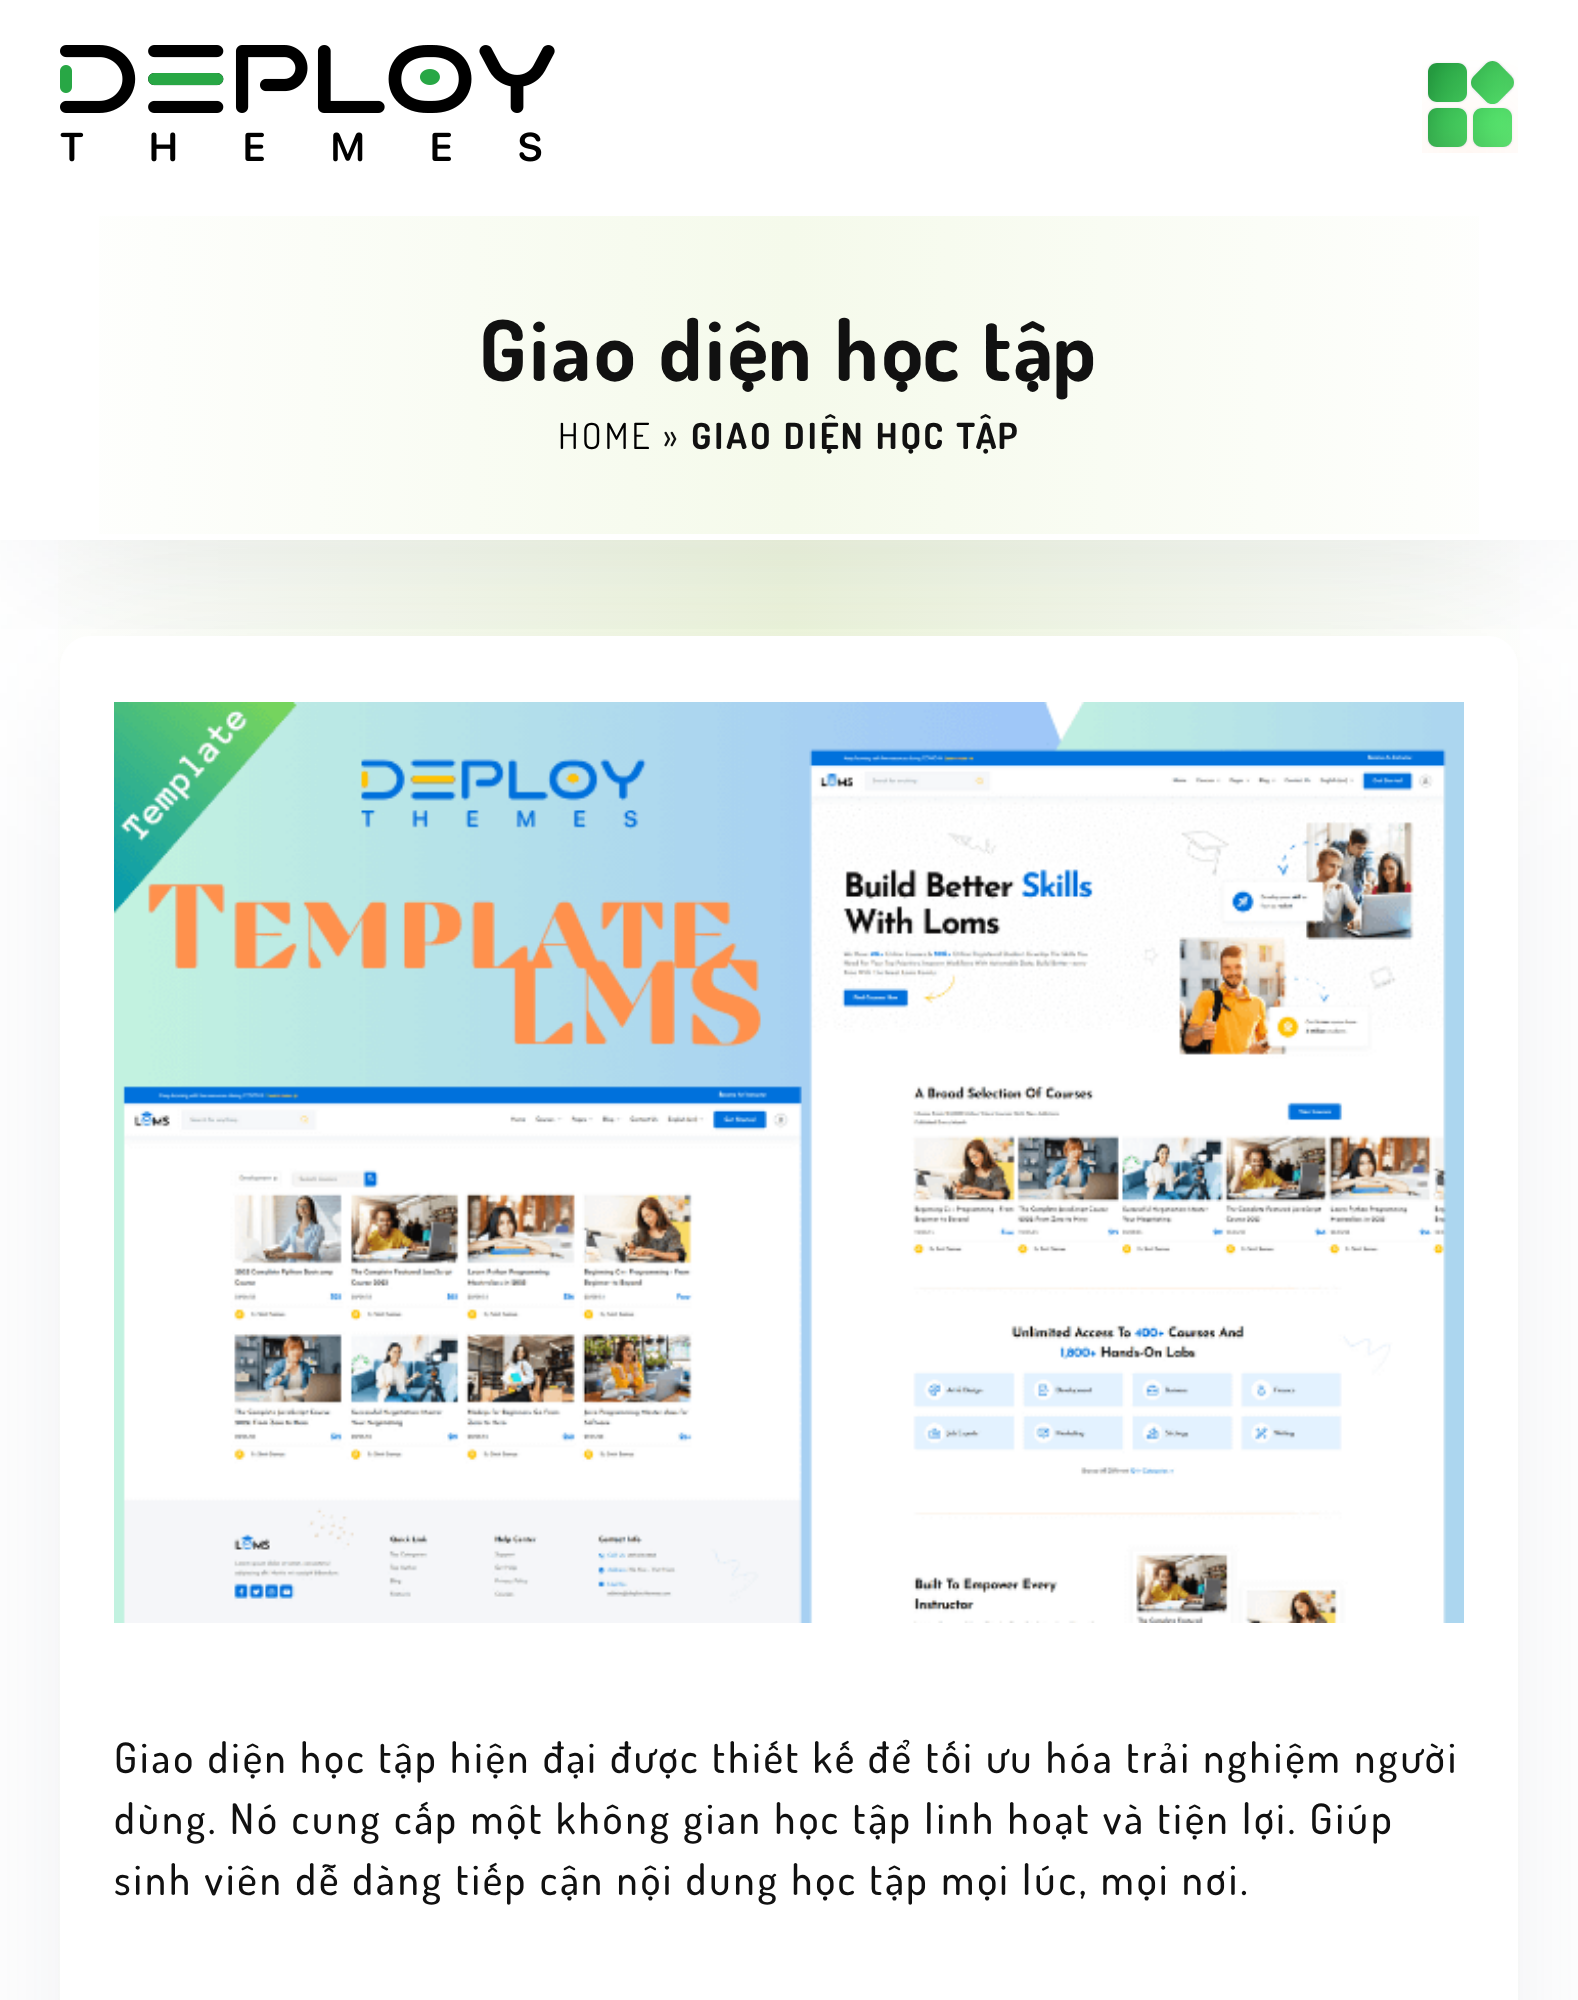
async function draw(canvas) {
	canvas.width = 1578;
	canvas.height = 2000;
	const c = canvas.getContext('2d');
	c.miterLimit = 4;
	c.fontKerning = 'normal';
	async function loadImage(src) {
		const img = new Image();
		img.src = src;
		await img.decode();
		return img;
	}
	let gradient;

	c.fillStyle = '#fff';
	c.fillRect(0, 0, 1578, 2000);
	gradient = c.createLinearGradient(0, 1001, 1578, 1001);
	gradient.addColorStop(0, '#fff');
	gradient.addColorStop(0.5, '#eff6dd');
	gradient.addColorStop(1, '#fff');
	c.fillStyle = gradient;
	c.fillRect(58, 540, 1462, 1460);
	gradient = c.createLinearGradient(0, 1001, 1578, 1001);
	gradient.addColorStop(0, '#fff');
	gradient.addColorStop(0.5, '#f5faeb');
	gradient.addColorStop(1, '#fff');
	c.fillStyle = gradient;
	c.fillRect(99, 216, 1380, 318);
	c.save();
	c.beginPath();
	c.rect(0, 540, 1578, 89);
	c.clip();
	c.fillStyle = '#40536f26';
	c.filter = 'blur(85.5px)';
	c.beginPath();
	c.rect(45, 294, 1488, 240);
	c.fill();
	c.filter = 'none';
	c.restore();
	c.fillStyle = '#fff';
	c.fillRect(57, 179, 1464, 31);
	c.drawImage(await loadImage('img1.png'), 60, 45, 495, 117);
	c.drawImage(await loadImage('img2.png'), 1422, 60, 96, 93);
	c.letterSpacing = '3px';
	c.font = 'bold 84px Dosis';
	c.fillStyle = '#111';
	c.fillText('Giao diện học tập', 479, 381);
	c.font = '36px Dosis';
	c.fillStyle = '#000';
	c.fillText('HOME', 558, 449);
	c.fillStyle = '#111';
	c.fillText('»', 663, 449);
	c.font = 'bold 36px Dosis';
	c.fillText('GIAO DIỆN HỌC TẬP', 691, 449);
	c.fillStyle = '#40536f26';
	c.filter = 'blur(85.5px)';
	c.beginPath();
	c.rect(105, 720, 1368, 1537);
	c.fill();
	c.filter = 'none';
	c.fillStyle = '#fff';
	c.beginPath();
	c.roundRect(60, 636, 1458, 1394, 30);
	c.fill();
	c.drawImage(await loadImage('img3.png'), 114, 702, 1350, 921);
	c.font = '500 42px Dosis';
	c.fillStyle = '#111';
	for (const [text, x, y] of [
		['Giao diện học tập hiện đại được thiết kế để tối ưu hóa trải nghiệm người', 114, 1773],
		['dùng. Nó cung cấp một không gian học tập linh hoạt và tiện lợi. Giúp', 114, 1834],
		['sinh viên dễ dàng tiếp cận nội dung học tập mọi lúc, mọi nơi.', 114, 1895],
	]) {
		c.fillText(text, x, y);
	}
}

draw(document.querySelector('canvas'));
